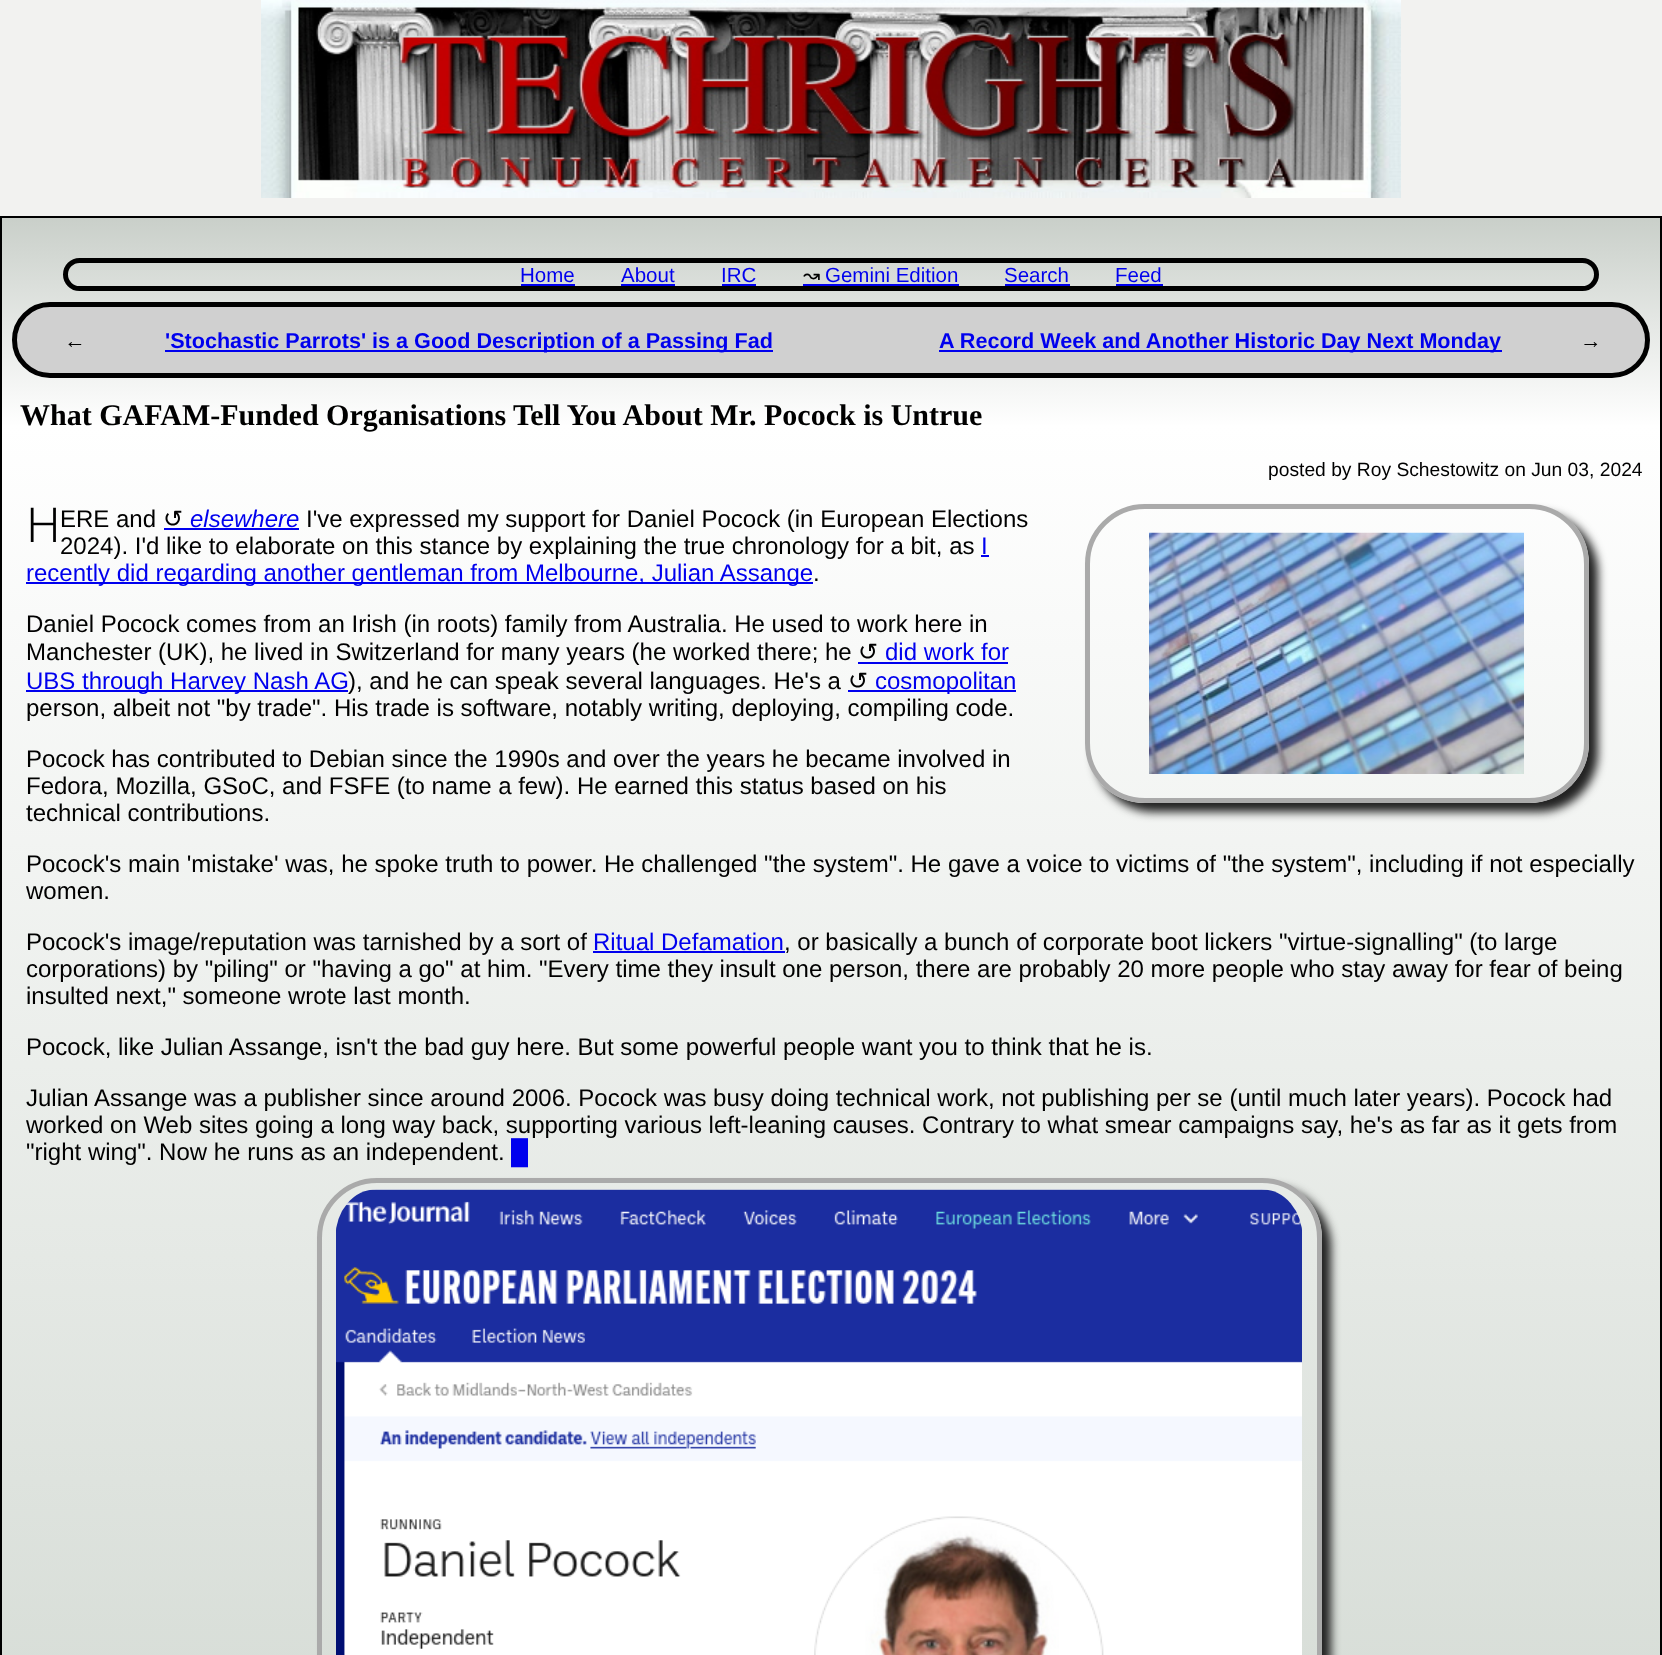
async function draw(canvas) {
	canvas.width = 1662;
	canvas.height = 1655;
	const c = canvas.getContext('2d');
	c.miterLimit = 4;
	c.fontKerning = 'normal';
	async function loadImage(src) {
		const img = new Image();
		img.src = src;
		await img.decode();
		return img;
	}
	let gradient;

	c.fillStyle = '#f2f2f0';
	c.fillRect(0, 0, 1662, 1655);
	c.drawImage(await loadImage('img1.png'), 261, 0, 1140, 198);
	gradient = c.createLinearGradient(831, 217, 831, 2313);
	gradient.addColorStop(0, '#c9cfc9');
	gradient.addColorStop(0.1, '#fff');
	gradient.addColorStop(0.8, '#d1d8d1');
	c.fillStyle = gradient;
	c.fillRect(2, 218, 1658, 1437);
	c.strokeStyle = '#000';
	c.lineWidth = 2;
	c.strokeRect(1, 217, 1660, 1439);
	c.beginPath();
	c.roundRect(65.5, 260.5, 1531, 28, 14);
	c.lineWidth = 5;
	c.stroke();
	c.font = '20.5px Liberation Sans';
	c.fillStyle = '#00e';
	c.fillText('Home', 520, 282);
	c.fillRect(521, 284, 54, 2);
	c.fillText('About', 621, 282);
	c.fillRect(621, 284, 54, 2);
	c.fillText('IRC', 721, 282);
	c.fillRect(722, 284, 34, 2);
	c.font = '20.5px DejaVu Sans';
	c.fillStyle = '#000';
	c.fillText('↝', 803, 282);
	c.fillStyle = '#00e';
	c.fillRect(803, 284, 156, 2);
	c.font = '20.5px Liberation Sans';
	c.fillText('Gemini Edition', 825, 282);
	c.fillText('Search', 1004, 282);
	c.fillRect(1005, 284, 65, 2);
	c.fillText('Feed', 1115, 282);
	c.fillRect(1116, 284, 47, 2);
	c.fillStyle = '#d0d0d0';
	c.beginPath();
	c.roundRect(14.5, 304.5, 1633, 71, 35.5);
	c.fill();
	c.stroke();
	c.font = 'bold 21.6px Liberation Sans';
	c.fillStyle = '#000';
	c.fillText('←', 64, 348);
	c.fillStyle = '#00e';
	c.fillRect(165, 350, 608, 2);
	c.fillText('\'Stochastic Parrots\' is a Good Description of a Passing Fad', 165, 348);
	c.fillRect(939, 350, 563, 2);
	c.fillText('A Record Week and Another Historic Day Next Monday', 939, 348);
	c.fillStyle = '#000';
	c.fillText('→', 1580, 348);
	c.font = 'bold 30px Liberation Serif';
	c.fillText('What GAFAM-Funded Organisations Tell You About Mr. Pocock is Untrue', 20, 425);
	c.font = '19.25px Liberation Sans';
	c.fillText('posted by Roy Schestowitz on Jun 03, 2024', 1268, 476);
	c.font = '300 48px Noto Sans';
	c.fillText('H', 26, 542);
	c.font = '24px Liberation Sans';
	c.fillText('ERE and', 60, 527);
	c.font = '24px DejaVu Sans';
	c.fillText('↺', 163, 527);
	c.font = 'italic 24px Liberation Sans';
	c.fillStyle = '#00e';
	c.fillText('elsewhere', 190, 527);
	c.fillRect(164, 528, 135, 2);
	c.font = '24px Liberation Sans';
	c.fillStyle = '#000';
	c.fillText('I\'ve expressed my support for Daniel Pocock (in European Elections', 306, 527);
	c.fillText('2024). I\'d like to elaborate on this stance by explaining the true chronology for a bit, as', 60, 554);
	c.fillStyle = '#00e';
	c.fillText('I', 981, 554);
	c.fillRect(981, 555, 8, 2);
	c.fillRect(26, 582, 787, 2);
	c.fillText('recently did regarding another gentleman from Melbourne, Julian Assange', 26, 581);
	c.fillStyle = '#000';
	c.fillText('.', 813, 581);
	c.save();
	c.beginPath();
	c.moveTo(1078, 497);
	c.lineTo(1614, 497);
	c.lineTo(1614, 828);
	c.lineTo(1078, 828);
	c.closePath();
	c.moveTo(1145, 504);
	c.lineTo(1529, 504);
	c.bezierCurveTo(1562, 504, 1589, 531, 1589, 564);
	c.lineTo(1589, 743);
	c.bezierCurveTo(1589, 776, 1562, 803, 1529, 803);
	c.lineTo(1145, 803);
	c.bezierCurveTo(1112, 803, 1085, 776, 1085, 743);
	c.lineTo(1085, 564);
	c.bezierCurveTo(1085, 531, 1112, 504, 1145, 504);
	c.closePath();
	c.clip('evenodd');
	c.fillStyle = '#222';
	c.filter = 'blur(5px)';
	c.beginPath();
	c.roundRect(1094, 513, 504, 299, 60);
	c.fill();
	c.filter = 'none';
	c.restore();
	c.beginPath();
	c.roundRect(1087.5, 506.5, 499, 294, 57.5);
	c.strokeStyle = '#aaa';
	c.stroke();
	c.drawImage(await loadImage('img2.png'), 1149, 532, 375, 242);
	c.fillText('Daniel Pocock comes from an Irish (in roots) family from Australia. He used to work here in', 26, 632);
	c.fillText('Manchester (UK), he lived in Switzerland for many years (he worked there; he', 26, 660);
	c.font = '24px DejaVu Sans';
	c.fillText('↺', 858, 660);
	c.font = '24px Liberation Sans';
	c.fillStyle = '#00e';
	c.fillText('did work for', 885, 660);
	c.fillRect(858, 662, 150, 2);
	c.fillRect(26, 690, 322, 2);
	c.fillText('UBS through Harvey Nash AG', 26, 689);
	c.fillStyle = '#000';
	c.fillText('), and he can speak several languages. He\'s a', 348, 689);
	c.font = '24px DejaVu Sans';
	c.fillText('↺', 848, 689);
	c.fillStyle = '#00e';
	c.fillRect(848, 690, 168, 2);
	c.font = '24px Liberation Sans';
	c.fillText('cosmopolitan', 875, 689);
	c.fillStyle = '#000';
	for (const [text, x, y] of [
		['person, albeit not "by trade". His trade is software, notably writing, deploying, compiling code.', 26, 716],
		['Pocock has contributed to Debian since the 1990s and over the years he became involved in', 26, 767],
		['Fedora, Mozilla, GSoC, and FSFE (to name a few). He earned this status based on his', 26, 794],
		['technical contributions.', 26, 821],
		['Pocock\'s main \'mistake\' was, he spoke truth to power. He challenged "the system". He gave a voice to victims of "the system", including if not especially', 26, 872],
		['women.', 26, 899],
		['Pocock\'s image/reputation was tarnished by a sort of', 26, 950],
	]) {
		c.fillText(text, x, y);
	}
	c.fillStyle = '#00e';
	c.fillText('Ritual Defamation', 593, 950);
	c.fillRect(593, 951, 192, 2);
	c.fillStyle = '#000';
	for (const [text, x, y] of [
		[', or basically a bunch of corporate boot lickers "virtue-signalling" (to large', 784, 950],
		['corporations) by "piling" or "having a go" at him. "Every time they insult one person, there are probably 20 more people who stay away for fear of being', 26, 977],
		['insulted next," someone wrote last month.', 26, 1004],
		['Pocock, like Julian Assange, isn\'t the bad guy here. But some powerful people want you to think that he is.', 26, 1055],
		['Julian Assange was a publisher since around 2006. Pocock was busy doing technical work, not publishing per se (until much later years). Pocock had', 26, 1106],
		['worked on Web sites going a long way back, supporting various left-leaning causes. Contrary to what smear campaigns say, he\'s as far as it gets from', 26, 1133],
		['"right wing". Now he runs as an independent.', 26, 1160],
	]) {
		c.fillText(text, x, y);
	}
	c.fillStyle = '#00e';
	c.fillRect(512, 1161, 16, 2);
	c.fillText('█', 511, 1160);
	c.save();
	c.beginPath();
	c.moveTo(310, 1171);
	c.lineTo(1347, 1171);
	c.lineTo(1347, 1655);
	c.lineTo(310, 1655);
	c.closePath();
	c.moveTo(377, 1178);
	c.lineTo(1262, 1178);
	c.bezierCurveTo(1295, 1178, 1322, 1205, 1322, 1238);
	c.lineTo(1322, 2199);
	c.bezierCurveTo(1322, 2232, 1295, 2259, 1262, 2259);
	c.lineTo(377, 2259);
	c.bezierCurveTo(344, 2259, 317, 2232, 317, 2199);
	c.lineTo(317, 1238);
	c.bezierCurveTo(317, 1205, 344, 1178, 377, 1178);
	c.closePath();
	c.clip('evenodd');
	c.fillStyle = '#222';
	c.filter = 'blur(5px)';
	c.beginPath();
	c.roundRect(326, 1187, 1005, 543, 60);
	c.fill();
	c.filter = 'none';
	c.restore();
	c.beginPath();
	c.roundRect(319.5, 1180.5, 1000, 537, 57.5);
	c.stroke();
	c.drawImage(await loadImage('img3.png'), 336, 1189, 966, 466);
}

draw(document.querySelector('canvas'));
